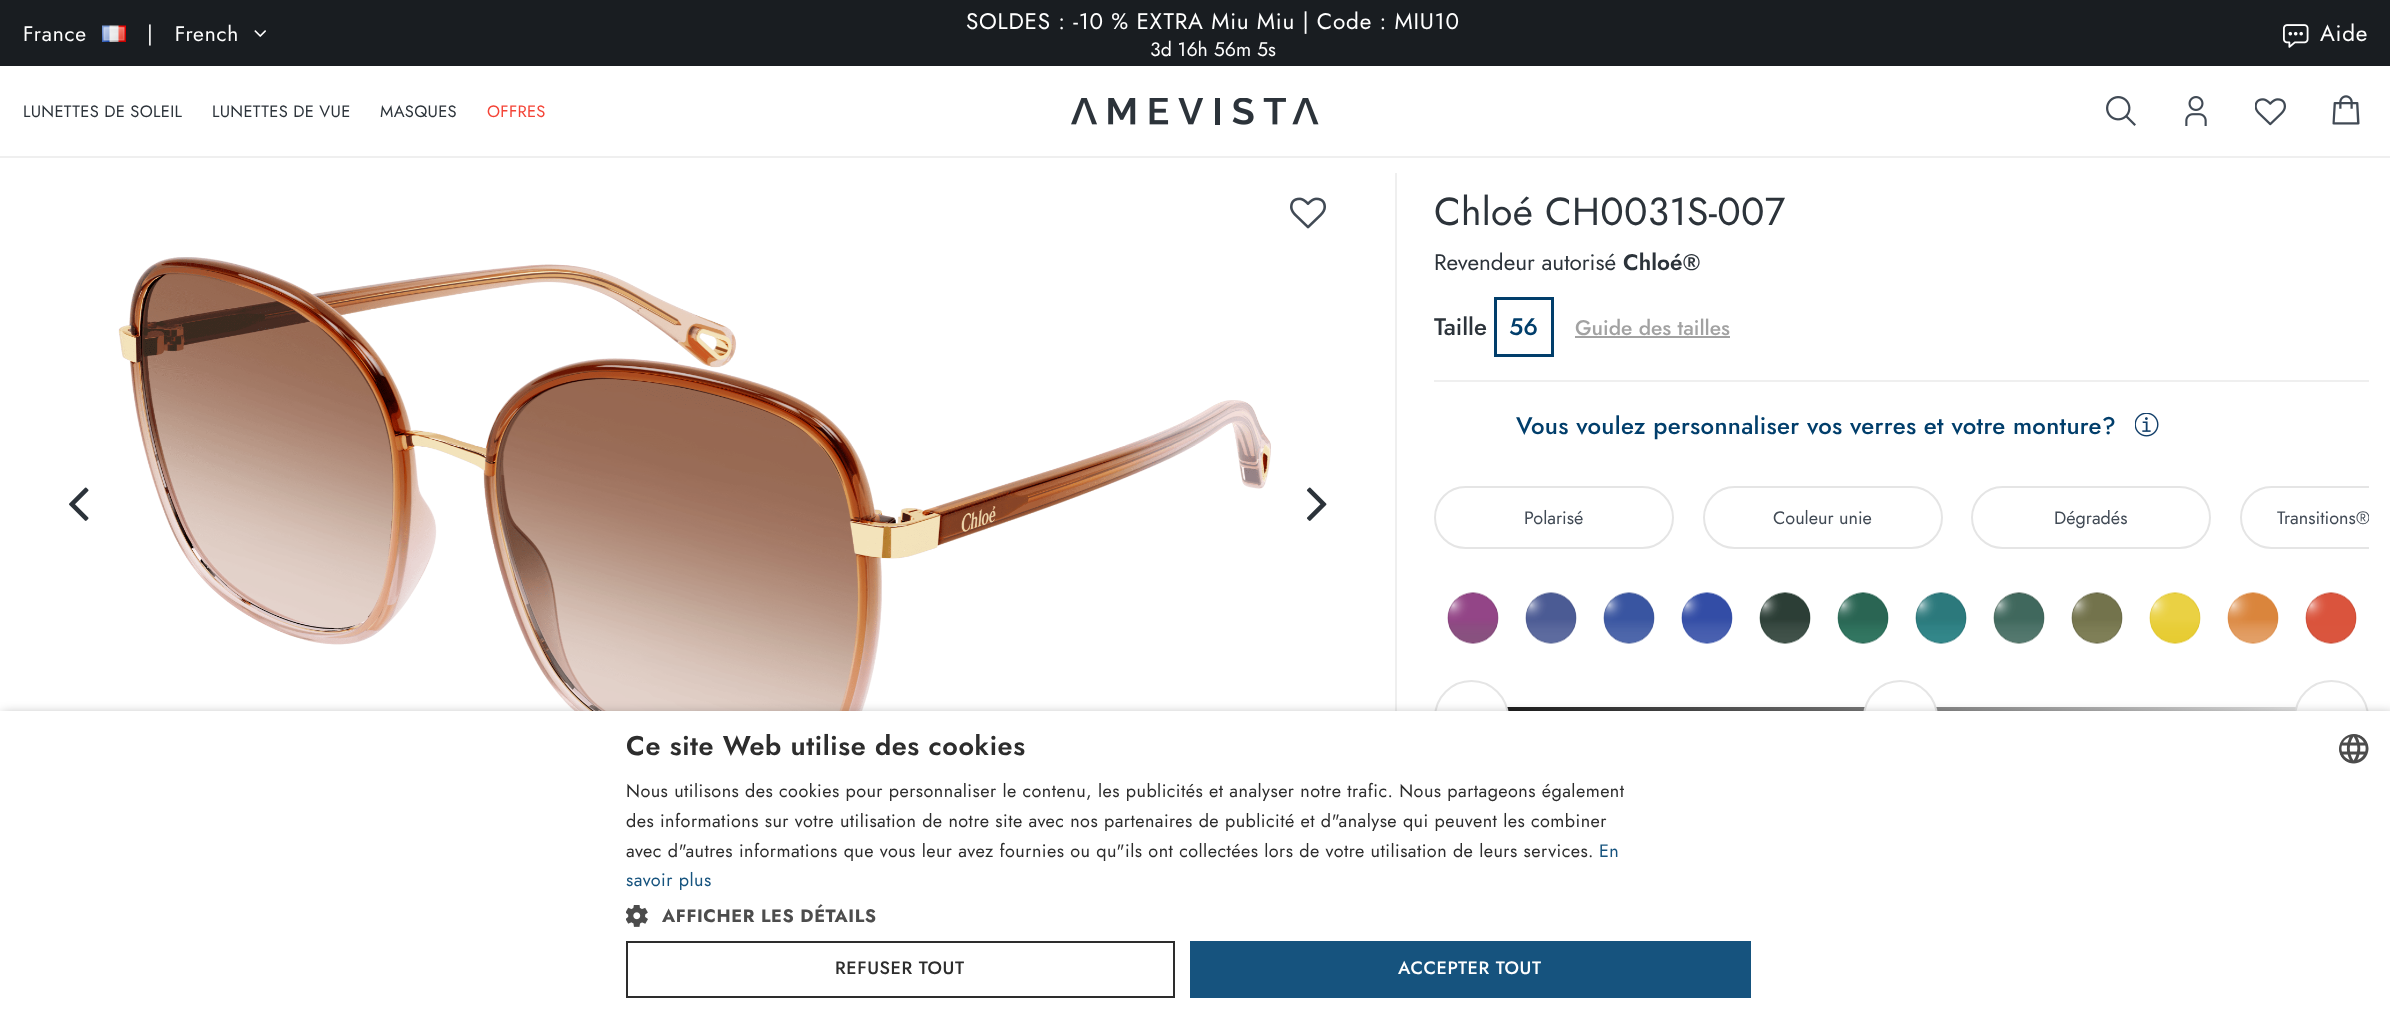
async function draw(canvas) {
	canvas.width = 2390;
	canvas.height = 1015;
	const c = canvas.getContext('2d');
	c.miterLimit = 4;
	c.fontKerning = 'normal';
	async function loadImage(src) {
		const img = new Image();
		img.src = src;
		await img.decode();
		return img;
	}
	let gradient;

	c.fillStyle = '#fff';
	c.fillRect(0, 0, 2390, 1015);
	c.fillStyle = '#191d21';
	c.fillRect(0, 0, 2390, 66);
	c.letterSpacing = '0.75px';
	c.font = '21px Jost';
	c.fillStyle = '#fff';
	c.fillText('France', 23, 41);
	c.drawImage(await loadImage('img1.png'), 102, 25, 24, 17);
	c.fillText('|   French', 147, 41);
	c.drawImage(await loadImage('img2.png'), 254, 30, 12, 7);
	c.font = '22.5px Jost';
	c.fillText('SOLDES : -10 % EXTRA Miu Miu | Code : MIU10', 966, 29);
	c.letterSpacing = '0px';
	c.font = '19.5px Jost';
	c.fillText('3d 16h 56m 5s', 1150, 56);
	c.drawImage(await loadImage('img3.png'), 2283, 24, 26, 24);
	c.letterSpacing = '0.75px';
	c.font = '22.5px Jost';
	c.fillText('Aide', 2320, 41);
	c.letterSpacing = '0.3px';
	c.font = '16.5px Jost';
	c.fillStyle = '#2c333a';
	for (const [text, x, y] of [
		['LUNETTES DE SOLEIL', 23, 117],
		['LUNETTES DE VUE', 212, 117],
		['MASQUES', 380, 117],
	]) {
		c.fillText(text, x, y);
	}
	c.fillStyle = '#f44336';
	c.fillText('OFFRES', 487, 117);
	c.drawImage(await loadImage('img4.png'), 1071, 98, 248, 27);
	c.drawImage(await loadImage('img5.png'), 2106, 96, 30, 30);
	c.drawImage(await loadImage('img6.png'), 2185, 96, 22, 30);
	c.drawImage(await loadImage('img7.png'), 2255, 98, 31, 28);
	c.drawImage(await loadImage('img8.png'), 2332, 95, 28, 30);
	c.fillStyle = '#efefef';
	c.fillRect(0, 156, 2390, 2);
	c.drawImage(await loadImage('img9.png'), 1290, 197, 36, 32);
	c.drawImage(await loadImage('img10.png'), 118, 257, 1153, 454);
	c.drawImage(await loadImage('img11.png'), 69, 487, 20, 34);
	c.drawImage(await loadImage('img12.png'), 1306, 487, 21, 34);
	c.fillRect(1395, 173, 2, 538);
	c.font = '39px Jost';
	c.fillStyle = '#2c333a';
	c.fillText('Chloé CH0031S-007', 1434, 225);
	c.letterSpacing = '0px';
	c.font = '22.5px Jost';
	c.fillText('Revendeur autorisé', 1434, 270);
	c.font = '600 22.5px Jost';
	c.fillText('Chloé®', 1623, 270);
	c.save();
	c.beginPath();
	c.rect(1434, 188, 935, 561);
	c.clip();
	c.font = '500 24px Jost';
	c.fillText('Taille', 1434, 335);
	c.restore();
	c.strokeStyle = '#013e6b';
	c.lineWidth = 3;
	c.strokeRect(1495.5, 298.5, 57, 57);
	c.font = '500 24px Jost';
	c.fillStyle = '#013e6b';
	c.fillText('56', 1509, 335);
	c.font = '500 21px Jost';
	c.fillStyle = '#a2a2a2';
	c.fillText('Guide des tailles', 1575, 335);
	c.fillRect(1575, 336, 155, 2);
	c.fillStyle = '#efefef';
	c.fillRect(1434, 380, 935, 2);
	c.letterSpacing = '0.3px';
	c.font = '500 24px Jost';
	c.fillStyle = '#013e6b';
	c.fillText('Vous voulez personnaliser vos verres et votre monture?', 1516, 434);
	c.drawImage(await loadImage('img13.png'), 2135, 413, 24, 24);
	c.beginPath();
	c.roundRect(1435, 487, 238, 61, 30.5);
	c.strokeStyle = '#e5e5e5';
	c.lineWidth = 2;
	c.stroke();
	c.letterSpacing = '0px';
	c.font = '18px Jost';
	c.fillStyle = '#414a55';
	c.fillText('Polarisé', 1524, 524);
	c.beginPath();
	c.roundRect(1704, 487, 238, 61, 30.5);
	c.stroke();
	c.fillText('Couleur unie', 1773, 524);
	c.beginPath();
	c.roundRect(1972, 487, 238, 61, 30.5);
	c.stroke();
	c.fillText('Dégradés', 2054, 524);
	c.save();
	c.beginPath();
	c.rect(1434, 486, 935, 63);
	c.clip();
	c.beginPath();
	c.roundRect(2241, 487, 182, 61, 30.5);
	c.stroke();
	c.fillText('Transitions®', 2277, 524);
	c.restore();
	c.drawImage(await loadImage('img14.png'), 1447, 592, 52, 52);
	c.drawImage(await loadImage('img15.png'), 1525, 592, 52, 52);
	c.drawImage(await loadImage('img16.png'), 1603, 592, 52, 52);
	c.drawImage(await loadImage('img17.png'), 1681, 592, 52, 52);
	c.drawImage(await loadImage('img18.png'), 1759, 592, 52, 52);
	c.drawImage(await loadImage('img19.png'), 1837, 592, 52, 52);
	c.drawImage(await loadImage('img20.png'), 1915, 592, 52, 52);
	c.drawImage(await loadImage('img21.png'), 1993, 592, 52, 52);
	c.drawImage(await loadImage('img22.png'), 2071, 592, 52, 52);
	c.drawImage(await loadImage('img23.png'), 2149, 592, 52, 52);
	c.drawImage(await loadImage('img24.png'), 2227, 592, 52, 52);
	c.drawImage(await loadImage('img25.png'), 2305, 592, 52, 52);
	gradient = c.createLinearGradient(2369, 716, 1434, 716);
	gradient.addColorStop(0, '#f2f2f2');
	gradient.addColorStop(1, '#0d0d0d');
	c.fillStyle = gradient;
	c.beginPath();
	c.roundRect(1434, 707, 935, 18, 9);
	c.fill();
	c.fillStyle = '#fff';
	c.beginPath();
	c.arc(1471.5, 717.5, 36.5, 0, 2 * Math.PI);
	c.fill();
	c.stroke();
	c.beginPath();
	c.arc(1900.5, 717.5, 36.5, 0, 2 * Math.PI);
	c.fill();
	c.stroke();
	c.beginPath();
	c.arc(2331.5, 717.5, 36.5, 0, 2 * Math.PI);
	c.fill();
	c.stroke();
	c.fillStyle = '#00000059';
	c.filter = 'blur(6px)';
	c.beginPath();
	c.rect(2, 714, 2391, 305);
	c.fill();
	c.filter = 'none';
	c.fillStyle = '#fff';
	c.fillRect(0, 711, 2390, 304);
	c.letterSpacing = '0.6px';
	c.font = '600 27px Jost';
	c.fillStyle = '#2d2d2d';
	c.fillText('Ce site Web utilise des cookies', 626, 755);
	c.letterSpacing = '0.45px';
	c.font = '18px Jost';
	for (const [text, x, y] of [
		['Nous utilisons des cookies pour personnaliser le contenu, les publicités et analyser notre trafic. Nous partageons également', 626, 797],
		['des informations sur votre utilisation de notre site avec nos partenaires de publicité et d"analyse qui peuvent les combiner', 626, 827],
		['avec d"autres informations que vous leur avez fournies ou qu"ils ont collectées lors de votre utilisation de leurs services.', 626, 857],
	]) {
		c.fillText(text, x, y);
	}
	c.fillStyle = '#16537e';
	c.fillText('En', 1599, 857);
	c.fillText('savoir plus', 626, 886);
	c.drawImage(await loadImage('img26.png'), 626, 905, 22, 22);
	c.letterSpacing = '0.6px';
	c.font = 'bold 18px Jost';
	c.fillStyle = '#4d4d4d';
	c.fillText('AFFICHER LES DÉTAILS', 662, 922);
	c.strokeStyle = '#2d2d2d';
	c.strokeRect(627, 942, 547, 55);
	c.font = '500 18px Jost';
	c.fillStyle = '#2d2d2d';
	c.fillText('REFUSER TOUT', 835, 974);
	c.fillStyle = '#16537e';
	c.fillRect(1190, 941, 561, 57);
	c.fillStyle = '#fff';
	c.fillText('ACCEPTER TOUT', 1398, 974);
	c.drawImage(await loadImage('img27.png'), 2339, 734, 30, 30);
}

draw(document.querySelector('canvas'));
